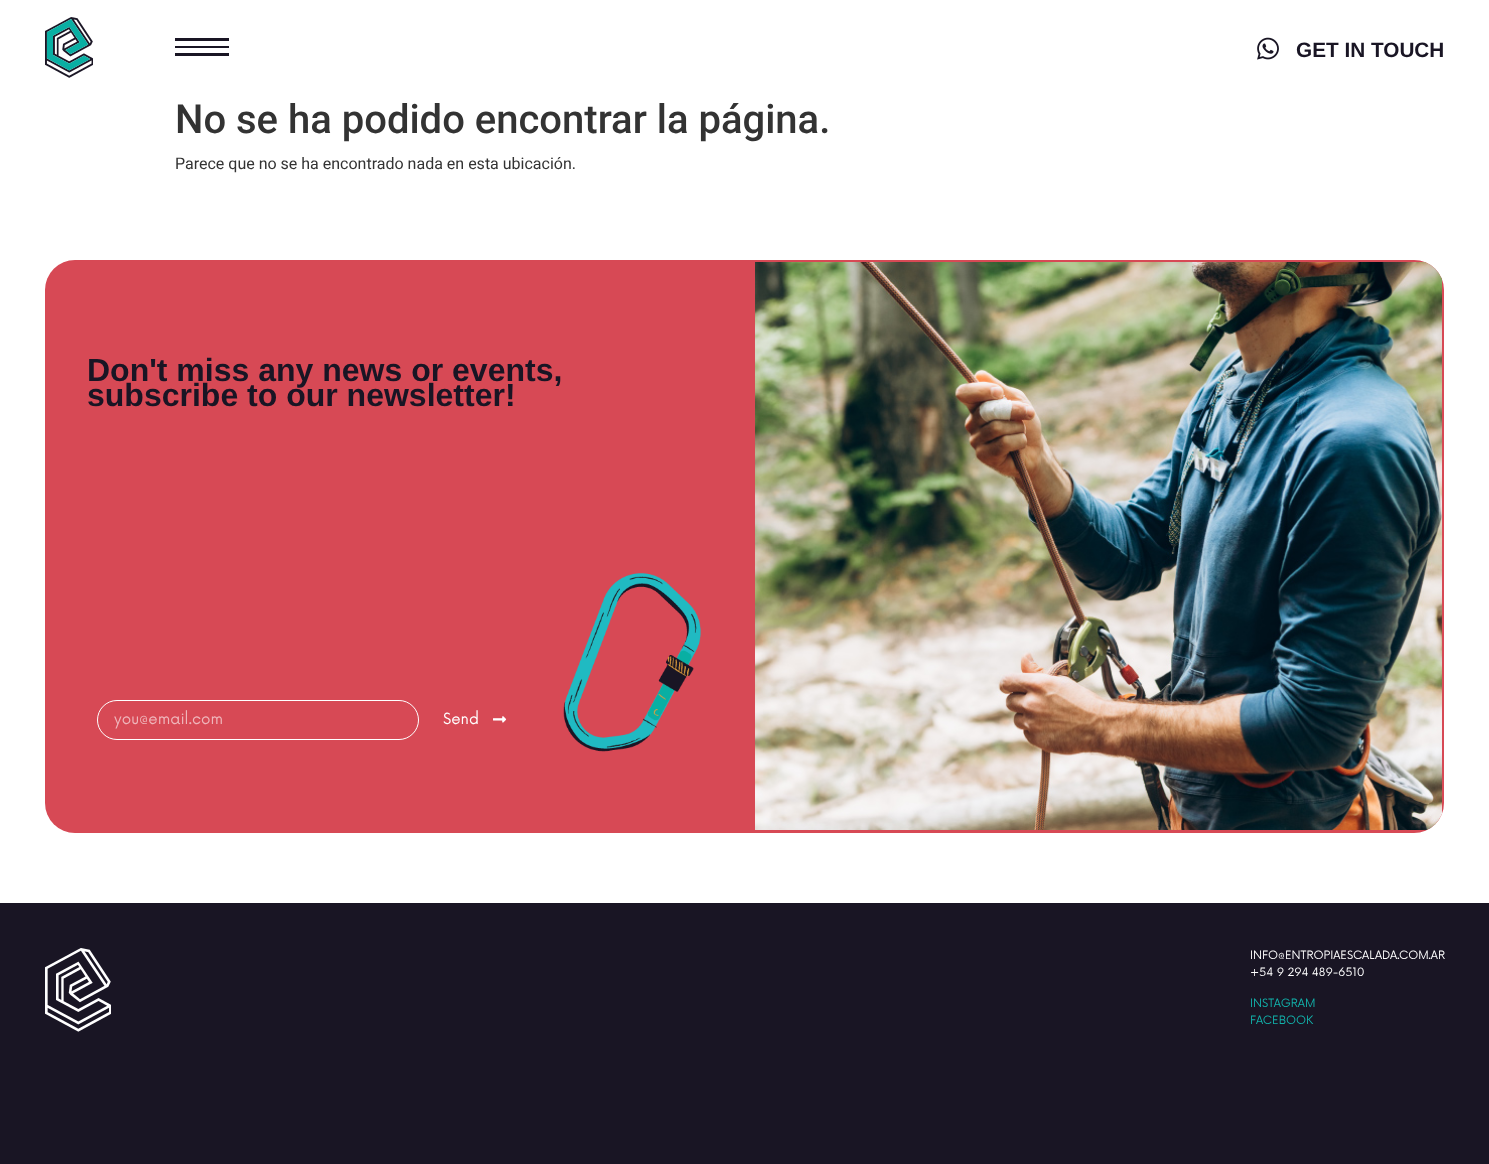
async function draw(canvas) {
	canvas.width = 1489;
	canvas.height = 1164;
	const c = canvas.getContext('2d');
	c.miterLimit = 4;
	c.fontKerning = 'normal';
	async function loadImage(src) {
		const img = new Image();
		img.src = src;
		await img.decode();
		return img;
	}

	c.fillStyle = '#fff';
	c.fillRect(0, 0, 1489, 1164);
	c.drawImage(await loadImage('img1.png'), 45, 17, 48, 61);
	for (const [x, y, w, h, color] of [
		[175, 38, 54, 3, '#191524'],
		[175, 46, 54, 2, '#191524'],
		[175, 53, 54, 3, '#191524'],
	]) {
		c.fillStyle = color;
		c.fillRect(x, y, w, h);
	}
	c.drawImage(await loadImage('img2.png'), 1257, 37, 22, 23);
	c.font = 'bold 20.75px Liberation Sans';
	c.fillText('GET IN TOUCH', 1296, 57);
	c.font = '500 40px Roboto';
	c.fillStyle = '#333';
	c.fillText('No se ha podido encontrar la página.', 175, 133);
	c.font = '16px Roboto';
	c.fillText('Parece que no se ha encontrado nada en esta ubicación.', 175, 169);
	c.fillStyle = '#d74955';
	c.beginPath();
	c.roundRect(45, 260, 1399, 573, 30);
	c.fill();
	c.font = 'bold 32px Liberation Sans';
	c.fillStyle = '#191524';
	c.fillText('Don\'t miss any news or events,', 87, 381);
	c.fillText('subscribe to our newsletter!', 87, 406);
	c.beginPath();
	c.roundRect(97.5, 700.5, 321, 39, 19.5);
	c.strokeStyle = '#fff';
	c.stroke();
	c.font = '15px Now';
	c.fillStyle = '#efb6bb';
	c.fillText('you@email.com', 114, 724);
	c.fillStyle = '#fff';
	c.fillText('Send', 443, 724);
	c.drawImage(await loadImage('img3.png'), 493, 716, 14, 7);
	c.drawImage(await loadImage('img4.png'), 563, 573, 138, 179);
	c.drawImage(await loadImage('img5.png'), 755, 262, 687, 568);
	c.fillStyle = '#191524';
	c.fillRect(0, 903, 1489, 261);
	c.drawImage(await loadImage('img6.png'), 45, 948, 66, 84);
	c.font = '11.25px Now';
	c.fillStyle = '#fff';
	c.fillText('INFO@ENTROPIAESCALADA.COM.AR', 1250, 959);
	c.fillText('+54 9 294 489-6510', 1250, 976);
	c.fillStyle = '#12b1aa';
	c.fillText('INSTAGRAM', 1250, 1007);
	c.fillText('FACEBOOK', 1250, 1024);
}

draw(document.querySelector('canvas'));
